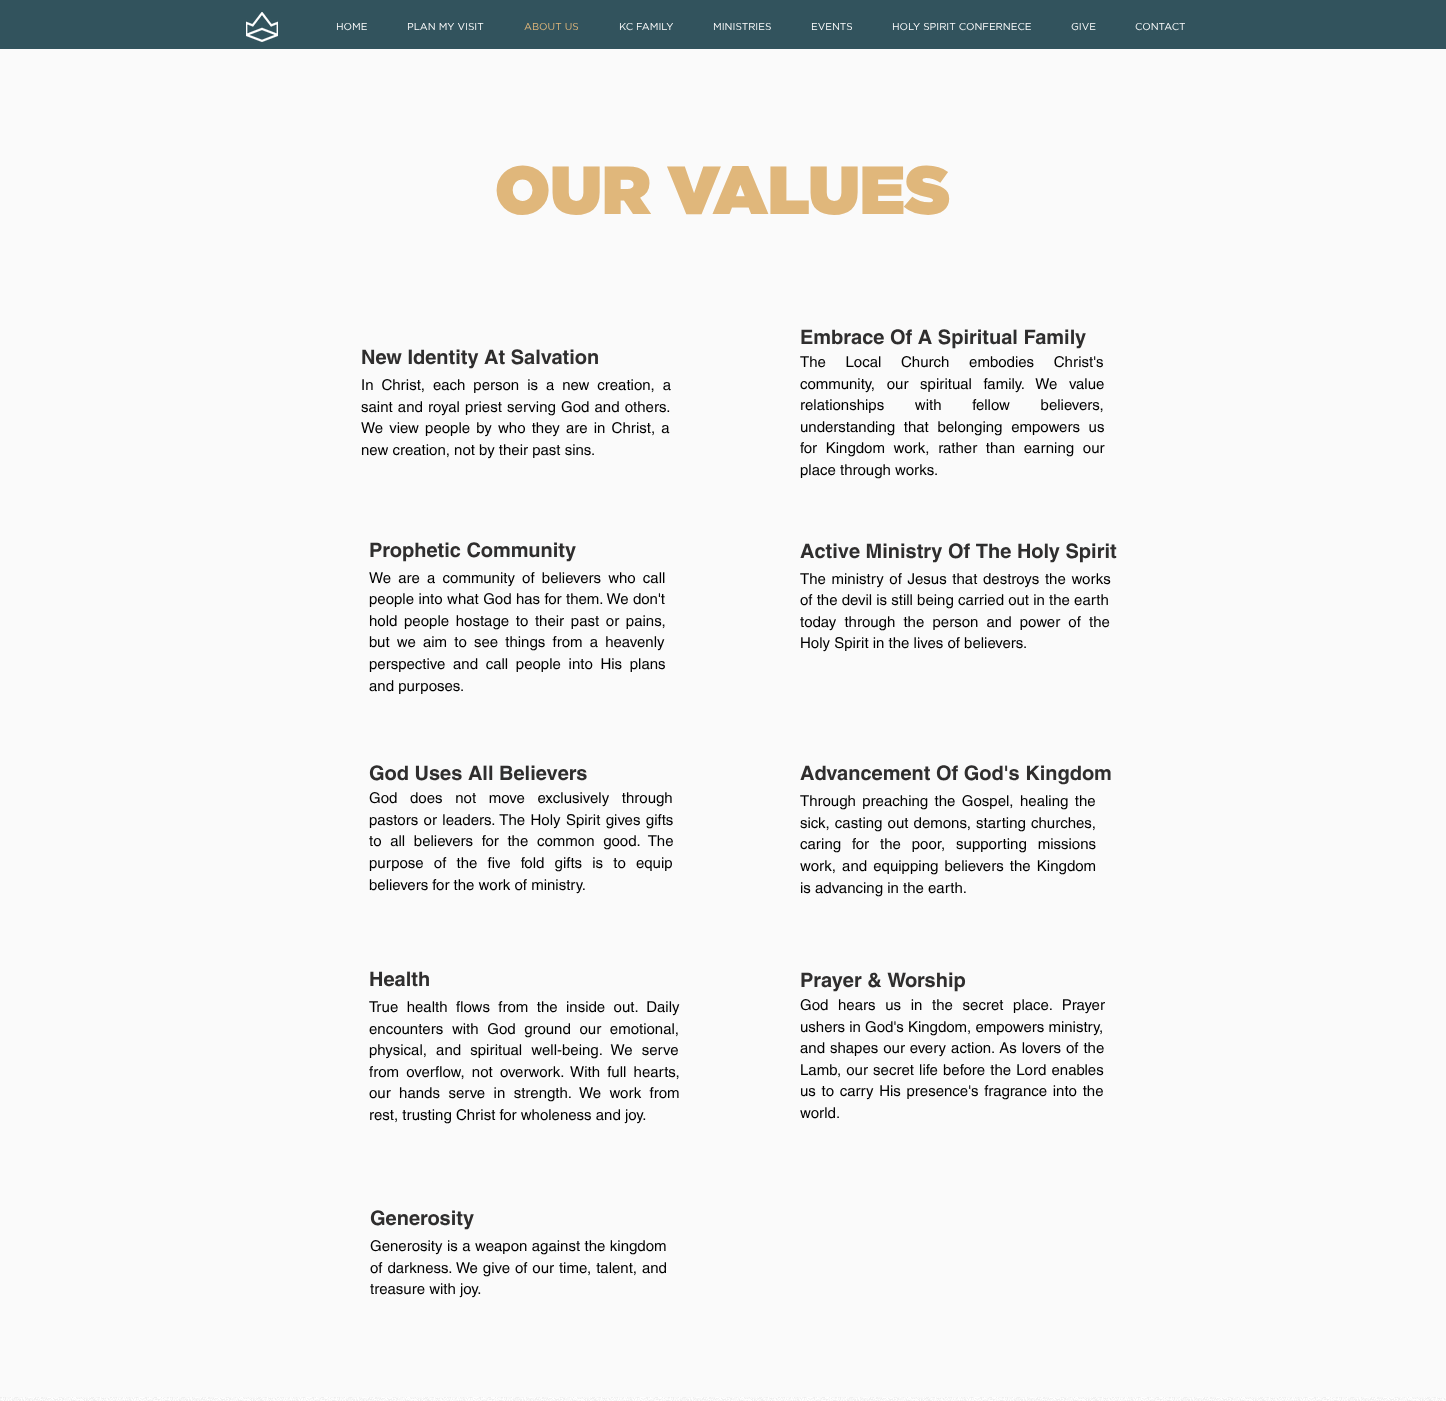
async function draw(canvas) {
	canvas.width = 1446;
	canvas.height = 1401;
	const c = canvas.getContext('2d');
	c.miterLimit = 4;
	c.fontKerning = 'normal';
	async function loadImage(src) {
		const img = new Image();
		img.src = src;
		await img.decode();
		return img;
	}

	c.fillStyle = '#fafafa';
	c.fillRect(0, 0, 1446, 1401);
	c.fillStyle = '#32535d';
	c.fillRect(0, 0, 1446, 49);
	c.drawImage(await loadImage('img1.png'), 246, 12, 32, 30);
	c.font = '10px Gotham';
	c.fillStyle = '#fff';
	c.fillText('HOME', 336, 30);
	c.fillText('PLAN MY VISIT', 407, 30);
	c.fillStyle = '#e0b77b';
	c.fillText('ABOUT US', 524, 30);
	c.fillStyle = '#fff';
	for (const [text, x, y] of [
		['KC FAMILY', 619, 30],
		['MINISTRIES', 713, 30],
		['EVENTS', 811, 30],
		['HOLY SPIRIT CONFERNECE', 892, 30],
		['GIVE', 1071, 30],
		['CONTACT', 1135, 30],
	]) {
		c.fillText(text, x, y);
	}
	c.font = '500 68px Gotham';
	c.fillStyle = '#e0b77b';
	c.fillText('OUR VALUES', 495, 214);
	c.font = 'bold 20px helvetica';
	c.fillStyle = '#2f2e2e';
	c.fillText('New Identity At Salvation', 361, 364);
	c.wordSpacing = '3.75px';
	c.font = '15px helvetica';
	c.fillStyle = '#000';
	c.fillText('In Christ, each person is a new creation, a', 361, 390);
	c.wordSpacing = '1px';
	c.fillText('saint and royal priest serving God and others.', 361, 412);
	c.wordSpacing = '2px';
	c.fillText('We view people by who they are in Christ, a', 361, 433);
	c.wordSpacing = '0px';
	c.fillText('new creation, not by their past sins.', 361, 455);
	c.font = 'bold 20px helvetica';
	c.fillStyle = '#2f2e2e';
	c.fillText('Embrace Of A Spiritual Family', 800, 344);
	c.wordSpacing = '15.5px';
	c.font = '15px helvetica';
	c.fillStyle = '#000';
	c.fillText('The Local Church embodies Christ\'s', 800, 367);
	c.wordSpacing = '7.5px';
	c.fillText('community, our spiritual family. We value', 800, 389);
	c.wordSpacing = '26.5px';
	c.fillText('relationships with fellow believers,', 800, 410);
	c.wordSpacing = '4.5px';
	c.fillText('understanding that belonging empowers us', 800, 432);
	c.fillText('for Kingdom work, rather than earning our', 800, 453);
	c.wordSpacing = '0px';
	c.fillText('place through works.', 800, 475);
	c.font = 'bold 20px helvetica';
	c.fillStyle = '#2f2e2e';
	c.fillText('Prophetic Community', 369, 557);
	c.wordSpacing = '3px';
	c.font = '15px helvetica';
	c.fillStyle = '#000';
	c.fillText('We are a community of believers who call', 369, 583);
	c.wordSpacing = '0.25px';
	c.fillText('people into what God has for them. We don\'t', 369, 604);
	c.wordSpacing = '2.5px';
	c.fillText('hold people hostage to their past or pains,', 369, 626);
	c.wordSpacing = '3px';
	c.fillText('but we aim to see things from a heavenly', 369, 647);
	c.wordSpacing = '3.5px';
	c.fillText('perspective and call people into His plans', 369, 669);
	c.wordSpacing = '0px';
	c.fillText('and purposes.', 369, 691);
	c.font = 'bold 20px helvetica';
	c.fillStyle = '#2f2e2e';
	c.fillText('Active Ministry Of The Holy Spirit', 800, 558);
	c.wordSpacing = '1.5px';
	c.font = '15px helvetica';
	c.fillStyle = '#000';
	c.fillText('The ministry of Jesus that destroys the works', 800, 584);
	c.wordSpacing = '0px';
	c.fillText('of the devil is still being carried out in the earth', 800, 605);
	c.wordSpacing = '4px';
	c.fillText('today through the person and power of the', 800, 627);
	c.wordSpacing = '0px';
	c.fillText('Holy Spirit in the lives of believers.', 800, 648);
	c.font = 'bold 20px helvetica';
	c.fillStyle = '#2f2e2e';
	c.fillText('God Uses All Believers', 369, 780);
	c.wordSpacing = '8.5px';
	c.font = '15px helvetica';
	c.fillStyle = '#000';
	c.fillText('God does not move exclusively through', 369, 803);
	c.wordSpacing = '1.25px';
	c.fillText('pastors or leaders. The Holy Spirit gives gifts', 369, 825);
	c.wordSpacing = '4.5px';
	c.fillText('to all believers for the common good. The', 369, 846);
	c.wordSpacing = '6px';
	c.fillText('purpose of the five fold gifts is to equip', 369, 868);
	c.wordSpacing = '0px';
	c.fillText('believers for the work of ministry.', 369, 890);
	c.font = 'bold 20px helvetica';
	c.fillStyle = '#2f2e2e';
	c.fillText('Advancement Of God\'s Kingdom', 800, 780);
	c.wordSpacing = '2.25px';
	c.font = '15px helvetica';
	c.fillStyle = '#000';
	c.fillText('Through preaching the Gospel, healing the', 800, 806);
	c.wordSpacing = '1px';
	c.fillText('sick, casting out demons, starting churches,', 800, 828);
	c.wordSpacing = '6.75px';
	c.fillText('caring for the poor, supporting missions', 800, 849);
	c.wordSpacing = '2px';
	c.fillText('work, and equipping believers the Kingdom', 800, 871);
	c.wordSpacing = '0px';
	c.fillText('is advancing in the earth.', 800, 893);
	c.font = 'bold 20px helvetica';
	c.fillStyle = '#2f2e2e';
	c.fillText('Health', 369, 986);
	c.wordSpacing = '4.25px';
	c.font = '15px helvetica';
	c.fillStyle = '#000';
	c.fillText('True health flows from the inside out. Daily', 369, 1012);
	c.wordSpacing = '4.5px';
	c.fillText('encounters with God ground our emotional,', 369, 1034);
	c.wordSpacing = '5px';
	c.fillText('physical, and spiritual well-being. We serve', 369, 1055);
	c.wordSpacing = '3px';
	c.fillText('from overflow, not overwork. With full hearts,', 369, 1077);
	c.wordSpacing = '4.25px';
	c.fillText('our hands serve in strength. We work from', 369, 1098);
	c.wordSpacing = '0px';
	c.fillText('rest, trusting Christ for wholeness and joy.', 369, 1120);
	c.font = 'bold 20px helvetica';
	c.fillStyle = '#2f2e2e';
	c.fillText('Prayer & Worship', 800, 987);
	c.wordSpacing = '5.5px';
	c.font = '15px helvetica';
	c.fillStyle = '#000';
	c.fillText('God hears us in the secret place. Prayer', 800, 1010);
	c.wordSpacing = '0px';
	c.fillText('ushers in God\'s Kingdom, empowers ministry,', 800, 1032);
	c.wordSpacing = '0.75px';
	c.fillText('and shapes our every action. As lovers of the', 800, 1053);
	c.wordSpacing = '1px';
	c.fillText('Lamb, our secret life before the Lord enables', 800, 1075);
	c.wordSpacing = '1.5px';
	c.fillText('us to carry His presence\'s fragrance into the', 800, 1096);
	c.wordSpacing = '0px';
	c.fillText('world.', 800, 1118);
	c.font = 'bold 20px helvetica';
	c.fillStyle = '#2f2e2e';
	c.fillText('Generosity', 370, 1225);
	c.wordSpacing = '0.25px';
	c.font = '15px helvetica';
	c.fillStyle = '#000';
	c.fillText('Generosity is a weapon against the kingdom', 370, 1251);
	c.wordSpacing = '0.75px';
	c.fillText('of darkness. We give of our time, talent, and', 370, 1273);
	c.wordSpacing = '0px';
	c.fillText('treasure with joy.', 370, 1294);
	c.fillStyle = '#fff';
	c.fillRect(0, 1397, 1446, 4);
	c.drawImage(await loadImage('img2.png'), 0, 1397, 1446, 4);
}

draw(document.querySelector('canvas'));
